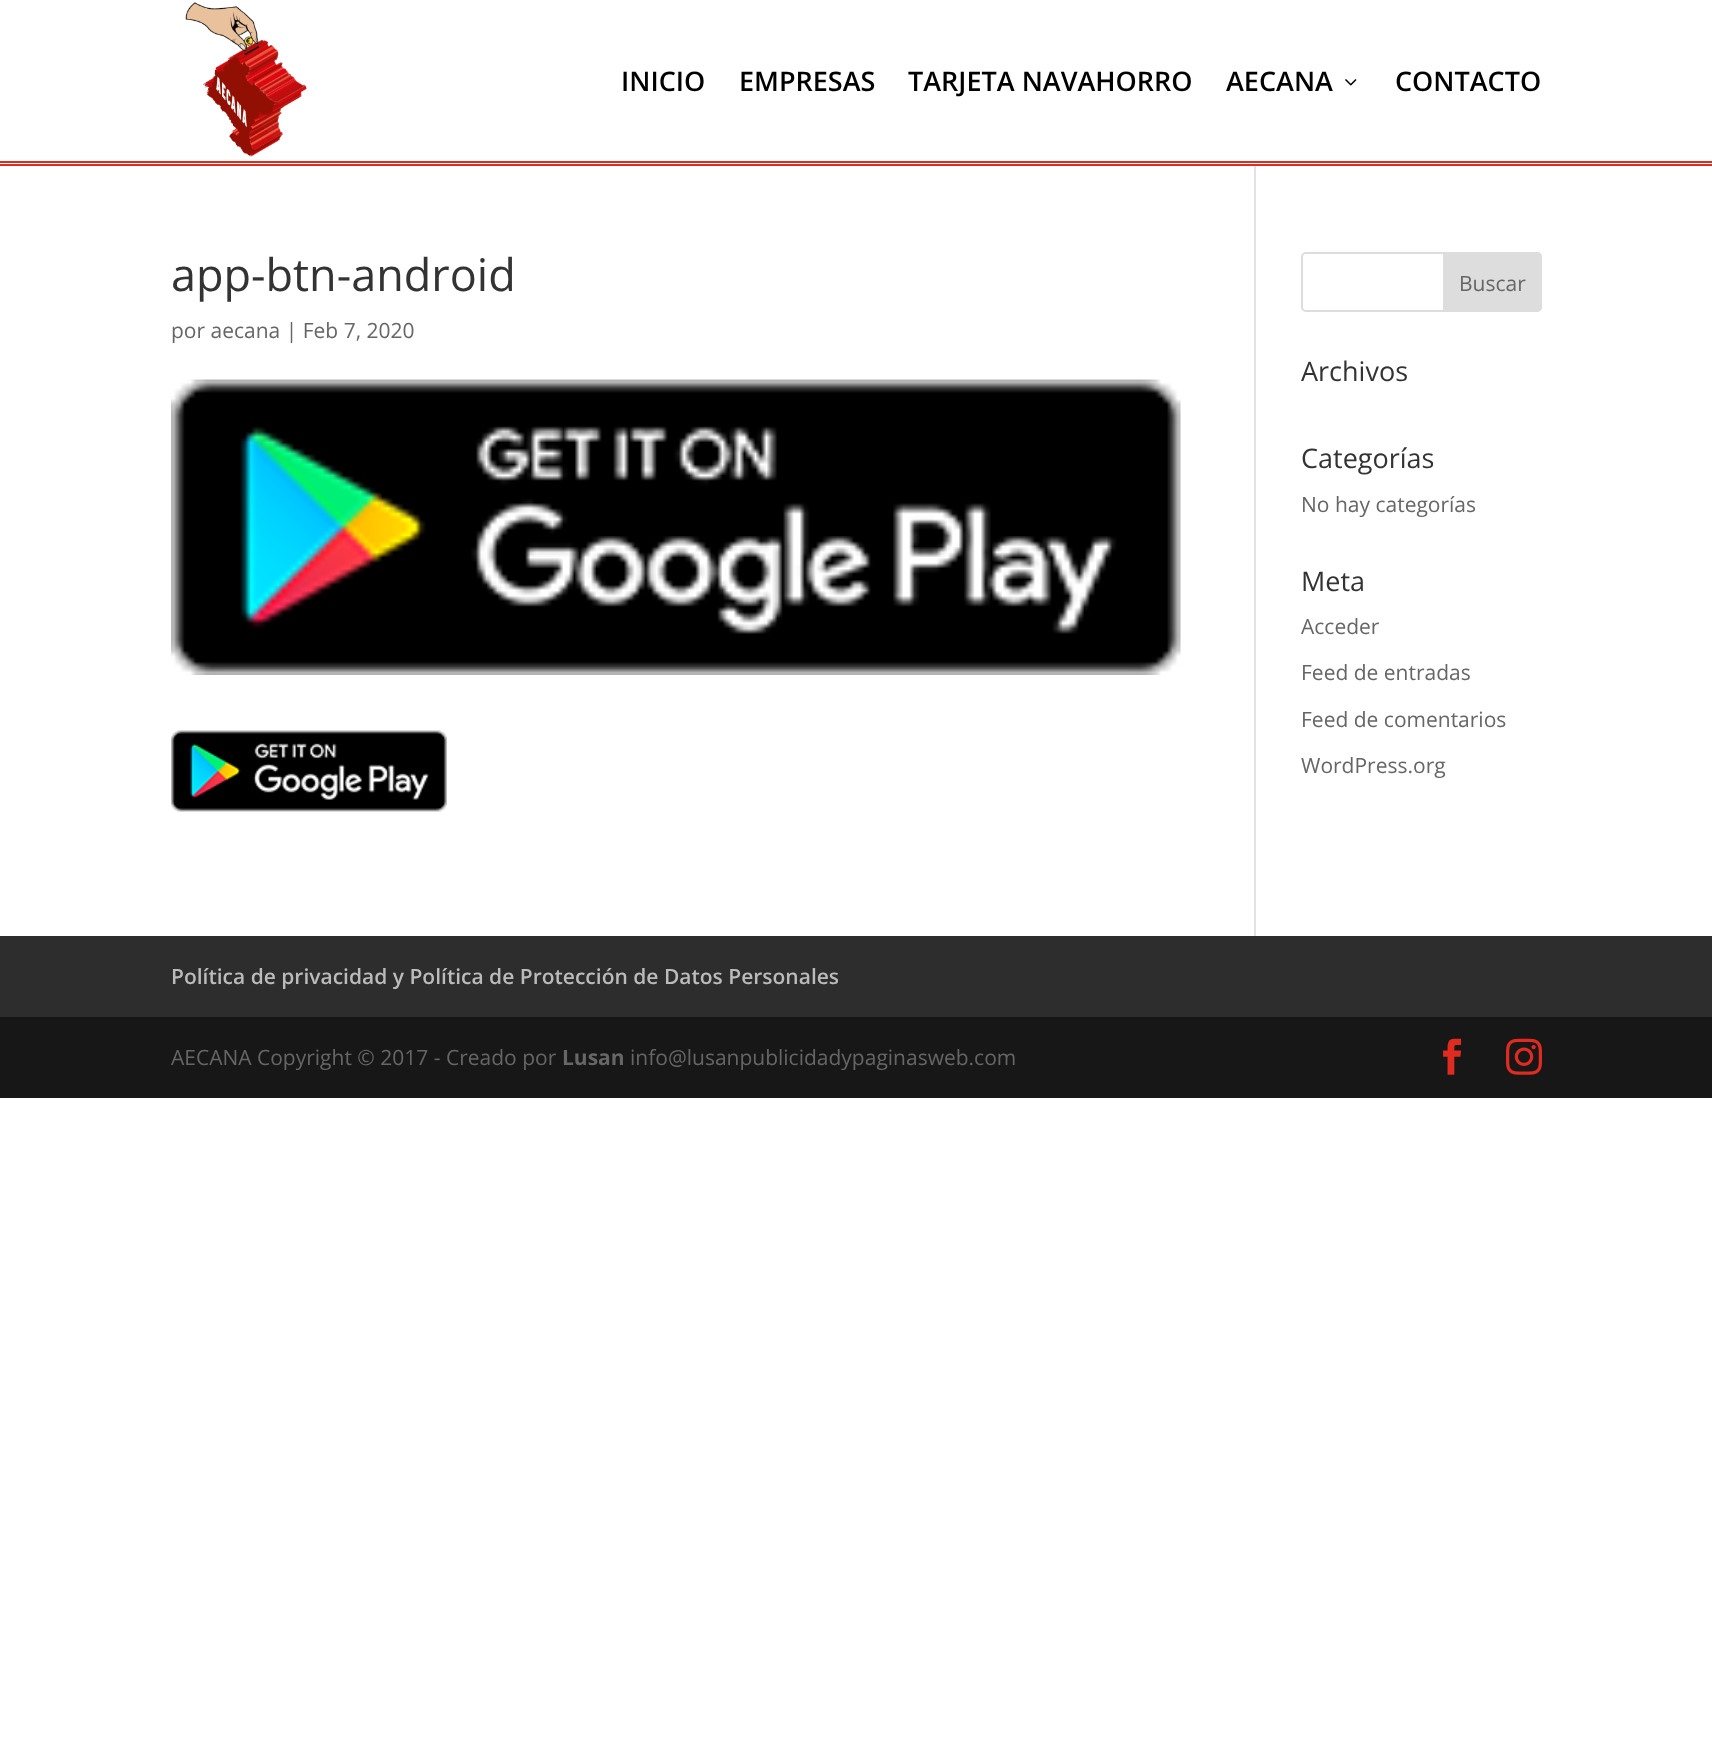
async function draw(canvas) {
	canvas.width = 1712;
	canvas.height = 1740;
	const c = canvas.getContext('2d');
	c.miterLimit = 4;
	c.fontKerning = 'normal';
	async function loadImage(src) {
		const img = new Image();
		img.src = src;
		await img.decode();
		return img;
	}

	c.fillStyle = '#fff';
	c.fillRect(0, 0, 1712, 1740);
	for (const [x, y, w, h, color] of [
		[0, 161, 1712, 2, '#e02b20'],
		[1254, 165, 2, 771, '#e2e2e2'],
		[0, 164, 1712, 2, '#e02b20'],
	]) {
		c.fillStyle = color;
		c.fillRect(x, y, w, h);
	}
	c.drawImage(await loadImage('img1.png'), 185, 2, 122, 155);
	c.font = '600 27px Open Sans';
	c.fillStyle = '#000';
	for (const [text, x, y] of [
		['INICIO', 621, 91],
		['EMPRESAS', 739, 91],
		['TARJETA NAVAHORRO', 908, 91],
		['AECANA', 1226, 91],
	]) {
		c.fillText(text, x, y);
	}
	c.drawImage(await loadImage('img2.png'), 1345, 79, 12, 7);
	c.fillText('CONTACTO', 1395, 91);
	c.font = '45px Open Sans';
	c.fillStyle = '#333';
	c.fillText('app-btn-android', 171, 291);
	c.font = '21px Open Sans';
	c.fillStyle = '#666';
	c.fillText('por aecana | Feb 7, 2020', 171, 338);
	c.drawImage(await loadImage('img3.png'), 171, 379, 1010, 296);
	c.drawImage(await loadImage('img4.png'), 171, 730, 276, 82);
	c.beginPath();
	c.roundRect(1302, 253, 239, 58, 4);
	c.strokeStyle = '#ddd';
	c.lineWidth = 2;
	c.stroke();
	c.fillStyle = '#ddd';
	c.beginPath();
	c.roundRect(1444, 253, 97, 58, [0, 4, 4, 0]);
	c.fill();
	c.stroke();
	c.fillStyle = '#666';
	c.fillText('Buscar', 1459, 291);
	c.font = '27px Open Sans';
	c.fillStyle = '#333';
	c.fillText('Archivos', 1301, 381);
	c.fillText('Categorías', 1301, 468);
	c.font = '21px Open Sans';
	c.fillStyle = '#666';
	c.fillText('No hay categorías', 1301, 512);
	c.font = '27px Open Sans';
	c.fillStyle = '#333';
	c.fillText('Meta', 1301, 591);
	c.font = '21px Open Sans';
	c.fillStyle = '#666';
	for (const [text, x, y] of [
		['Acceder', 1301, 634],
		['Feed de entradas', 1301, 680],
		['Feed de comentarios', 1301, 727],
		['WordPress.org', 1301, 773],
	]) {
		c.fillText(text, x, y);
	}
	c.fillStyle = '#2d2d2d';
	c.fillRect(0, 936, 1712, 81);
	c.font = '600 21px Open Sans';
	c.fillStyle = '#bbb';
	c.fillText('Política de privacidad y Política de Protección de Datos Personales', 171, 984);
	c.fillStyle = '#171717';
	c.fillRect(0, 1017, 1712, 81);
	c.font = '21px Open Sans';
	c.fillStyle = '#666';
	c.fillText('AECANA Copyright © 2017 - Creado por', 171, 1065);
	c.font = 'bold 21px Open Sans';
	c.fillText('Lusan', 562, 1065);
	c.font = '21px Open Sans';
	c.fillText('info@lusanpublicidadypaginasweb.com', 630, 1065);
	c.drawImage(await loadImage('img5.png'), 1443, 1038, 19, 37);
	c.drawImage(await loadImage('img6.png'), 1506, 1038, 36, 37);
}

draw(document.querySelector('canvas'));
